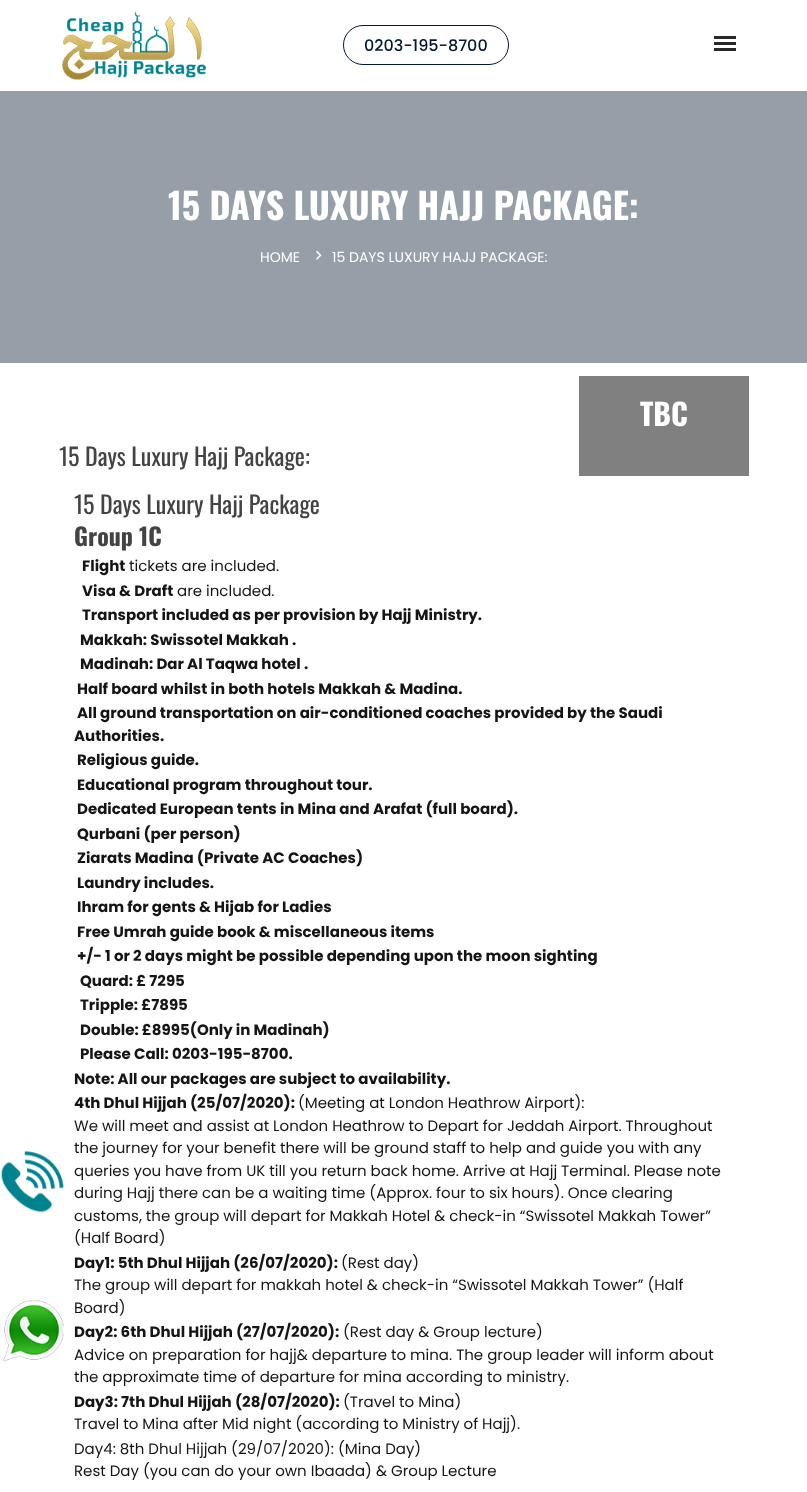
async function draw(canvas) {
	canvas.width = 807;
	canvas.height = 1492;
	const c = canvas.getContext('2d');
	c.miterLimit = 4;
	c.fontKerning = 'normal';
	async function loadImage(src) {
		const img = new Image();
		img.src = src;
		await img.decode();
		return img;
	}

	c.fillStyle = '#fff';
	c.fillRect(0, 0, 807, 1492);
	c.drawImage(await loadImage('img1.png'), 1, 1151, 63, 62);
	c.drawImage(await loadImage('img2.png'), 62, 11, 144, 69);
	c.beginPath();
	c.roundRect(343.5, 25.5, 165, 39, 19.5);
	c.strokeStyle = '#021832';
	c.stroke();
	c.font = '500 16px Poppins';
	c.fillStyle = '#021832';
	c.fillText('0203-195-8700', 364, 51);
	for (const [x, y, w, h, color] of [
		[714, 36, 22, 3, '#282828'],
		[714, 42, 22, 3, '#282828'],
		[714, 48, 22, 3, '#282828'],
		[0, 91, 807, 272, '#969fa8'],
	]) {
		c.fillStyle = color;
		c.fillRect(x, y, w, h);
	}
	c.font = 'bold 36px Oswald';
	c.fillStyle = '#fff';
	c.fillText('15 DAYS LUXURY HAJJ PACKAGE:', 168, 220);
	c.font = '14px Poppins';
	c.fillText('HOME', 260, 262);
	c.drawImage(await loadImage('img3.png'), 316, 250, 6, 10);
	c.fillText('15 DAYS LUXURY HAJJ PACKAGE:', 332, 262);
	c.fillStyle = '#808080';
	c.fillRect(579, 376, 170, 100);
	c.font = 'bold 30px Oswald';
	c.fillStyle = '#fff';
	c.fillText('TBC', 640, 426);
	c.font = '24px Oswald';
	c.fillStyle = '#434343';
	c.fillText('15 Days Luxury Hajj Package:', 59, 466);
	c.fillText('15 Days Luxury Hajj Package', 74, 514);
	c.font = 'bold 24px Oswald';
	c.fillText('Group 1C', 74, 546);
	c.font = 'bold 15px Poppins';
	c.fillStyle = '#151515';
	c.fillText('Flight', 82, 571);
	c.font = '15px Poppins';
	c.fillText('tickets are included.', 129, 571);
	c.font = 'bold 15px Poppins';
	c.fillText('Visa & Draft', 82, 596);
	c.font = '15px Poppins';
	c.fillText('are included.', 177, 596);
	c.font = 'bold 15px Poppins';
	for (const [text, x, y] of [
		['Transport included as per provision by Hajj Ministry.', 82, 620],
		['Makkah: Swissotel Makkah .', 80, 645],
		['Madinah: Dar Al Taqwa hotel .', 80, 669],
		['Half board whilst in both hotels Makkah & Madina.', 77, 694],
		['All ground transportation on air-conditioned coaches provided by the Saudi', 77, 718],
		['Authorities.', 74, 741],
		['Religious guide.', 77, 765],
		['Educational program throughout tour.', 77, 790],
		['Dedicated European tents in Mina and Arafat (full board).', 77, 814],
		['Qurbani (per person)', 77, 839],
		['Ziarats Madina (Private AC Coaches)', 77, 863],
		['Laundry includes.', 77, 888],
		['Ihram for gents & Hijab for Ladies', 77, 912],
		['Free Umrah guide book & miscellaneous items', 77, 937],
		['+/- 1 or 2 days might be possible depending upon the moon sighting', 77, 961],
		['Quard: £ 7295', 80, 986],
		['Tripple: £7895', 80, 1010],
		['Double: £8995(Only in Madinah)', 80, 1035],
		['Please Call: 0203-195-8700.', 80, 1059],
		['Note: All our packages are subject to availability.', 74, 1084],
		['4th Dhul Hijjah (25/07/2020):', 74, 1108],
	]) {
		c.fillText(text, x, y);
	}
	c.font = '15px Poppins';
	for (const [text, x, y] of [
		['(Meeting at London Heathrow Airport):', 298, 1108],
		['We will meet and assist at London Heathrow to Depart for Jeddah Airport. Throughout', 74, 1131],
		['the journey for your benefit there will be ground staff to help and guide you with any', 74, 1153],
		['queries you have from UK till you return back home. Arrive at Hajj Terminal. Please note', 74, 1176],
		['during Hajj there can be a waiting time (Approx. four to six hours). Once clearing', 74, 1198],
		['customs, the group will depart for Makkah Hotel & check-in “Swissotel Makkah Tower”', 74, 1221],
		['(Half Board)', 74, 1243],
	]) {
		c.fillText(text, x, y);
	}
	c.font = 'bold 15px Poppins';
	c.fillText('Day1: 5th Dhul Hijjah (26/07/2020):', 74, 1268);
	c.font = '15px Poppins';
	for (const [text, x, y] of [
		['(Rest day)', 341, 1268],
		['The group will depart for makkah hotel & check-in “Swissotel Makkah Tower” (Half', 74, 1290],
		['Board)', 74, 1313],
	]) {
		c.fillText(text, x, y);
	}
	c.font = 'bold 15px Poppins';
	c.fillText('Day2: 6th Dhul Hijjah (27/07/2020):', 74, 1337);
	c.font = '15px Poppins';
	for (const [text, x, y] of [
		['(Rest day & Group lecture)', 343, 1337],
		['Advice on preparation for hajj& departure to mina. The group leader will inform about', 74, 1360],
		['the approximate time of departure for mina according to ministry.', 74, 1382],
	]) {
		c.fillText(text, x, y);
	}
	c.font = 'bold 15px Poppins';
	c.fillText('Day3: 7th Dhul Hijjah (28/07/2020):', 74, 1407);
	c.font = '15px Poppins';
	for (const [text, x, y] of [
		['(Travel to Mina)', 343, 1407],
		['Travel to Mina after Mid night (according to Ministry of Hajj).', 74, 1429],
		['Day4: 8th Dhul Hijjah (29/07/2020): (Mina Day)', 74, 1454],
		['Rest Day (you can do your own Ibaada) & Group Lecture', 74, 1476],
	]) {
		c.fillText(text, x, y);
	}
	c.drawImage(await loadImage('img4.png'), 3, 1300, 61, 62);
}

draw(document.querySelector('canvas'));
